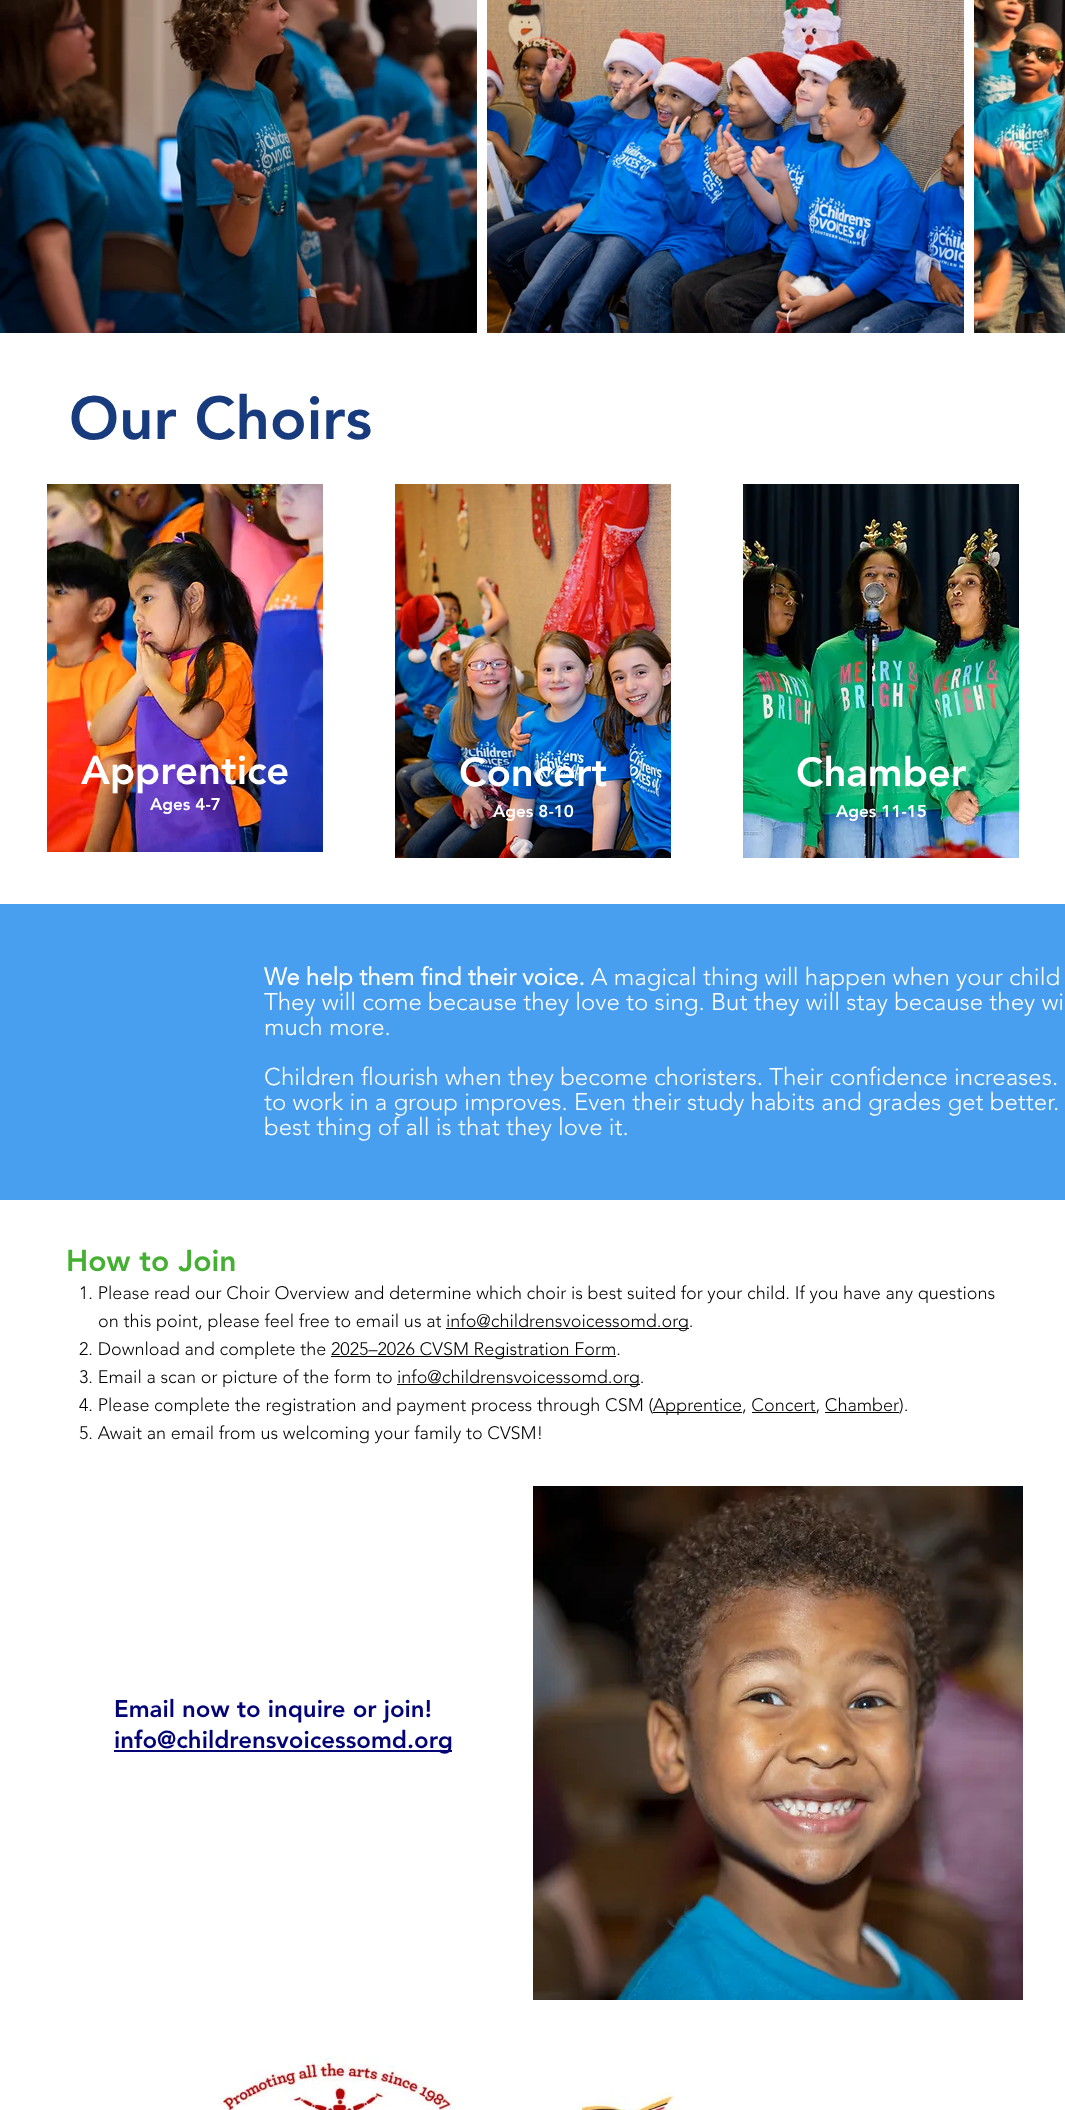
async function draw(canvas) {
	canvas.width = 1065;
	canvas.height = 2110;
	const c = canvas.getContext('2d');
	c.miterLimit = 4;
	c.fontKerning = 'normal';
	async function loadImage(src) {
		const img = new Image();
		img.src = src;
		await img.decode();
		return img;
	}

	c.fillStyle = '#fff';
	c.fillRect(0, 0, 1065, 2110);
	c.drawImage(await loadImage('img1.png'), 0, 0, 477, 333);
	c.drawImage(await loadImage('img2.png'), 487, 0, 477, 333);
	c.drawImage(await loadImage('img3.png'), 974, 0, 91, 333);
	c.font = '900 60px "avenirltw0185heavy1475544"';
	c.fillStyle = '#183b7e';
	c.fillText('Our Choirs', 69, 439);
	c.drawImage(await loadImage('img4.png'), 47, 484, 276, 368);
	c.font = '900 40px "avenirltw0185heavy1475544"';
	c.fillStyle = '#fff';
	c.fillText('Apprentice', 81, 784);
	c.font = '900 17px "avenirltw0185heavy1475544"';
	c.fillText('Ages 4-7', 150, 810);
	c.drawImage(await loadImage('img5.png'), 395, 484, 276, 374);
	c.font = '900 40px "avenirltw0185heavy1475544"';
	c.fillText('Concert', 459, 786);
	c.font = '900 17px "avenirltw0185heavy1475544"';
	c.fillText('Ages 8-10', 493, 817);
	c.drawImage(await loadImage('img6.png'), 743, 484, 276, 374);
	c.font = '900 40px "avenirltw0185heavy1475544"';
	c.fillText('Chamber', 796, 786);
	c.font = '900 17px "avenirltw0185heavy1475544"';
	c.fillText('Ages 11-15', 836, 817);
	c.fillStyle = '#489fef';
	c.fillRect(0, 904, 1065, 296);
	c.font = 'bold 24px "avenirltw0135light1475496"';
	c.fillStyle = '#fff';
	c.fillText('We help them find their voice.', 264, 985);
	c.font = '300 24px "avenirltw0135light1475496"';
	for (const [text, x, y] of [
		['A magical thing will happen when your child', 591, 985],
		['They will come because they love to sing. But they will stay because they wi', 264, 1010],
		['much more.', 264, 1035],
		['Children flourish when they become choristers. Their confidence increases.', 264, 1085],
		['to work in a group improves. Even their study habits and grades get better.', 264, 1110],
		['best thing of all is that they love it.', 264, 1135],
	]) {
		c.fillText(text, x, y);
	}
	c.font = '900 30px "avenirltw0185heavy1475544"';
	c.fillStyle = '#44b031';
	c.fillText('How to Join', 66, 1271);
	c.font = '300 18px "avenirltw0135light1475496"';
	c.fillStyle = '#000';
	c.fillText('1. Please read our Choir Overview and determine which choir is best suited for your child. If you have any questions', 79, 1299);
	c.fillText('on this point, please feel free to email us at', 98, 1327);
	c.fillRect(446, 1328, 243, 1);
	c.fillText('info@childrensvoicessomd.org.', 446, 1327);
	c.fillText('2. Download and complete the', 79, 1355);
	c.fillRect(331, 1356, 285, 1);
	c.fillText('2025–2026 CVSM Registration Form.', 331, 1355);
	c.fillText('3. Email a scan or picture of the form to', 79, 1383);
	c.fillRect(397, 1384, 243, 1);
	c.fillText('info@childrensvoicessomd.org.', 397, 1383);
	c.fillText('4. Please complete the registration and payment process through CSM (', 79, 1411);
	c.fillRect(653, 1412, 89, 1);
	c.fillText('Apprentice, Concert, Chamber).', 653, 1411);
	c.fillRect(752, 1412, 64, 1);
	c.fillRect(825, 1412, 74, 1);
	c.fillText('5. Await an email from us welcoming your family to CVSM!', 79, 1439);
	c.font = '900 24px "avenirltw0185heavy1475544"';
	c.fillStyle = '#030475';
	c.fillText('Email now to inquire or join!', 114, 1717);
	c.fillRect(114, 1750, 338, 2);
	c.fillText('info@childrensvoicessomd.org', 114, 1748);
	c.drawImage(await loadImage('img7.png'), 533, 1486, 490, 514);
	c.drawImage(await loadImage('img8.png'), 219, 2057, 233, 53);
	c.drawImage(await loadImage('img9.png'), 578, 2093, 96, 17);
}

draw(document.querySelector('canvas'));
